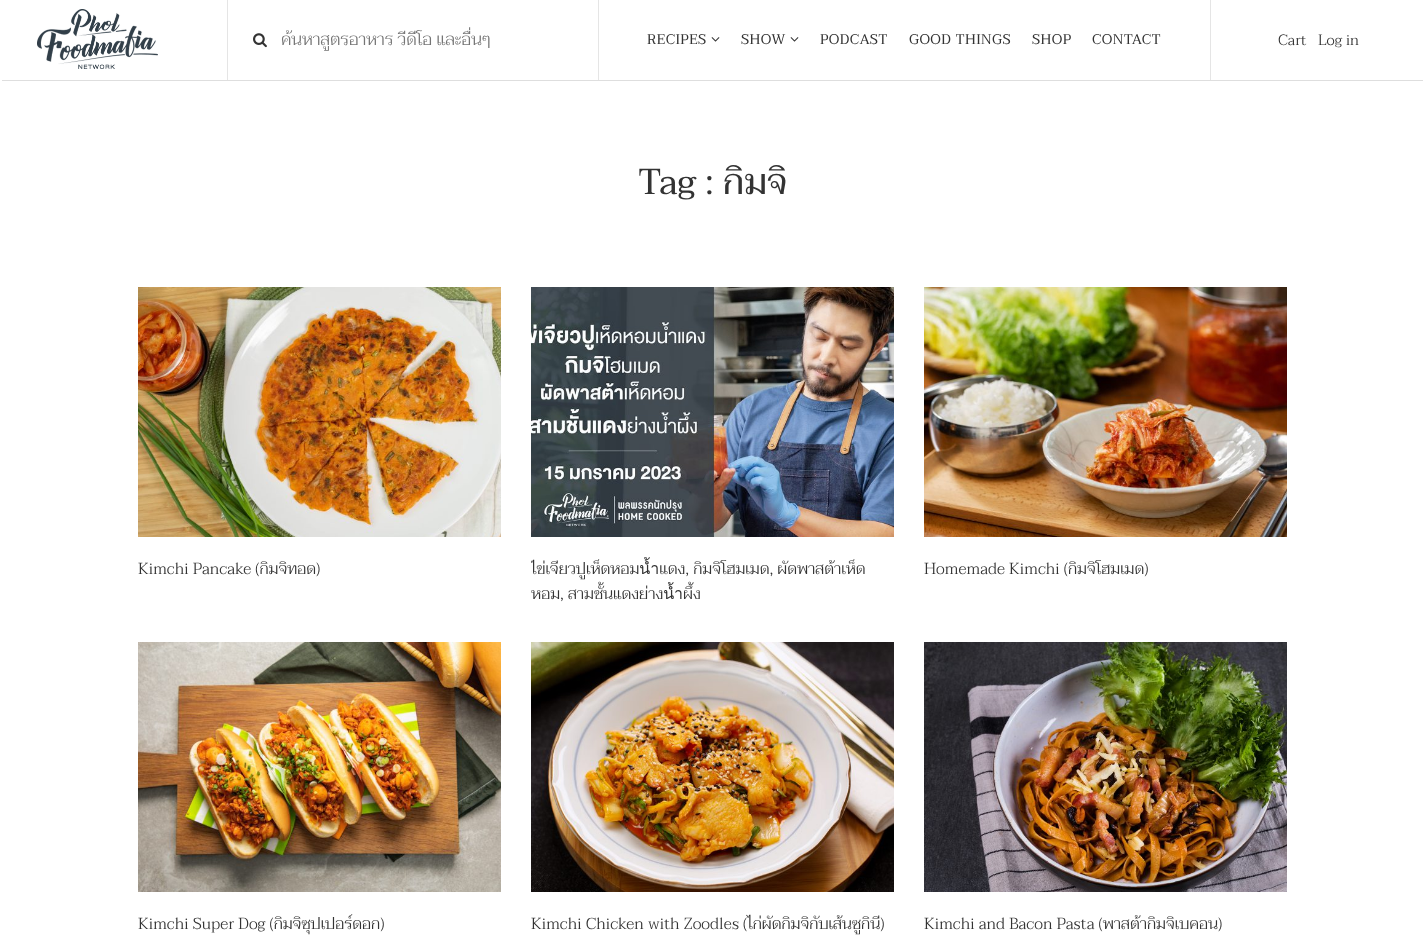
async function draw(canvas) {
	canvas.width = 1425;
	canvas.height = 949;
	const c = canvas.getContext('2d');
	c.miterLimit = 4;
	c.fontKerning = 'normal';
	async function loadImage(src) {
		const img = new Image();
		img.src = src;
		await img.decode();
		return img;
	}

	c.fillStyle = '#fff';
	c.fillRect(0, 0, 1425, 949);
	c.save();
	c.beginPath();
	c.rect(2, 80, 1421, 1);
	c.clip();
	c.fillStyle = '#00000021';
	c.filter = 'blur(0.5px)';
	c.beginPath();
	c.rect(2, 5, 1421, 76);
	c.fill();
	c.filter = 'none';
	c.restore();
	c.fillStyle = '#e5e5e5';
	c.fillRect(227, 0, 1, 80);
	c.drawImage(await loadImage('img1.png'), 37, 9, 121, 60);
	c.fillRect(598, 0, 1, 80);
	c.drawImage(await loadImage('img2.png'), 253, 33, 14, 15);
	c.save();
	c.beginPath();
	c.rect(281, 25, 317, 29);
	c.clip();
	c.font = '300 17px Taviraj';
	c.fillStyle = '#757575';
	c.fillText('ค้นหาสูตรอาหาร วีดีโอ และอื่นๆ', 281, 45);
	c.restore();
	c.fillRect(1210, 0, 1, 80);
	c.letterSpacing = '0.4px';
	c.font = '14px Taviraj';
	c.fillStyle = '#333';
	c.fillText('RECIPES', 647, 44);
	c.drawImage(await loadImage('img3.png'), 711, 37, 9, 5);
	c.fillText('SHOW', 741, 44);
	c.drawImage(await loadImage('img3.png'), 790, 37, 9, 5);
	for (const [text, x, y] of [
		['PODCAST', 820, 44],
		['GOOD THINGS', 909, 44],
		['SHOP', 1032, 44],
		['CONTACT', 1092, 44],
	]) {
		c.fillText(text, x, y);
	}
	c.letterSpacing = '0px';
	c.font = '300 15px Taviraj';
	c.fillText('Cart', 1278, 45);
	c.fillText('Log in', 1318, 45);
	c.font = '36px Taviraj';
	c.fillText('Tag : กิมจิ', 638, 194);
	c.drawImage(await loadImage('img4.png'), 138, 287, 363, 250);
	c.font = '300 16px Taviraj';
	c.fillText('Kimchi Pancake (กิมจิทอด)', 138, 574);
	c.drawImage(await loadImage('img5.png'), 531, 287, 363, 250);
	c.save();
	c.beginPath();
	c.rect(531, 557, 363, 50);
	c.clip();
	c.fillText('ไข่เจียวปูเห็ดหอมน้ำแดง, กิมจิโฮมเมด, ผัดพาสต้าเห็ด', 531, 574);
	c.restore();
	c.fillText('หอม, สามชั้นแดงย่างน้ำผึ้ง', 531, 599);
	c.drawImage(await loadImage('img6.png'), 924, 287, 363, 250);
	c.fillText('Homemade Kimchi (กิมจิโฮมเมด)', 924, 574);
	c.drawImage(await loadImage('img7.png'), 138, 642, 363, 250);
	c.fillText('Kimchi Super Dog (กิมจิซุปเปอร์ดอก)', 138, 929);
	c.drawImage(await loadImage('img8.png'), 531, 642, 363, 250);
	c.fillText('Kimchi Chicken with Zoodles (ไก่ผัดกิมจิกับเส้นซูกินี)', 531, 929);
	c.drawImage(await loadImage('img9.png'), 924, 642, 363, 250);
	c.fillText('Kimchi and Bacon Pasta (พาสต้ากิมจิเบคอน)', 924, 929);
}

draw(document.querySelector('canvas'));
